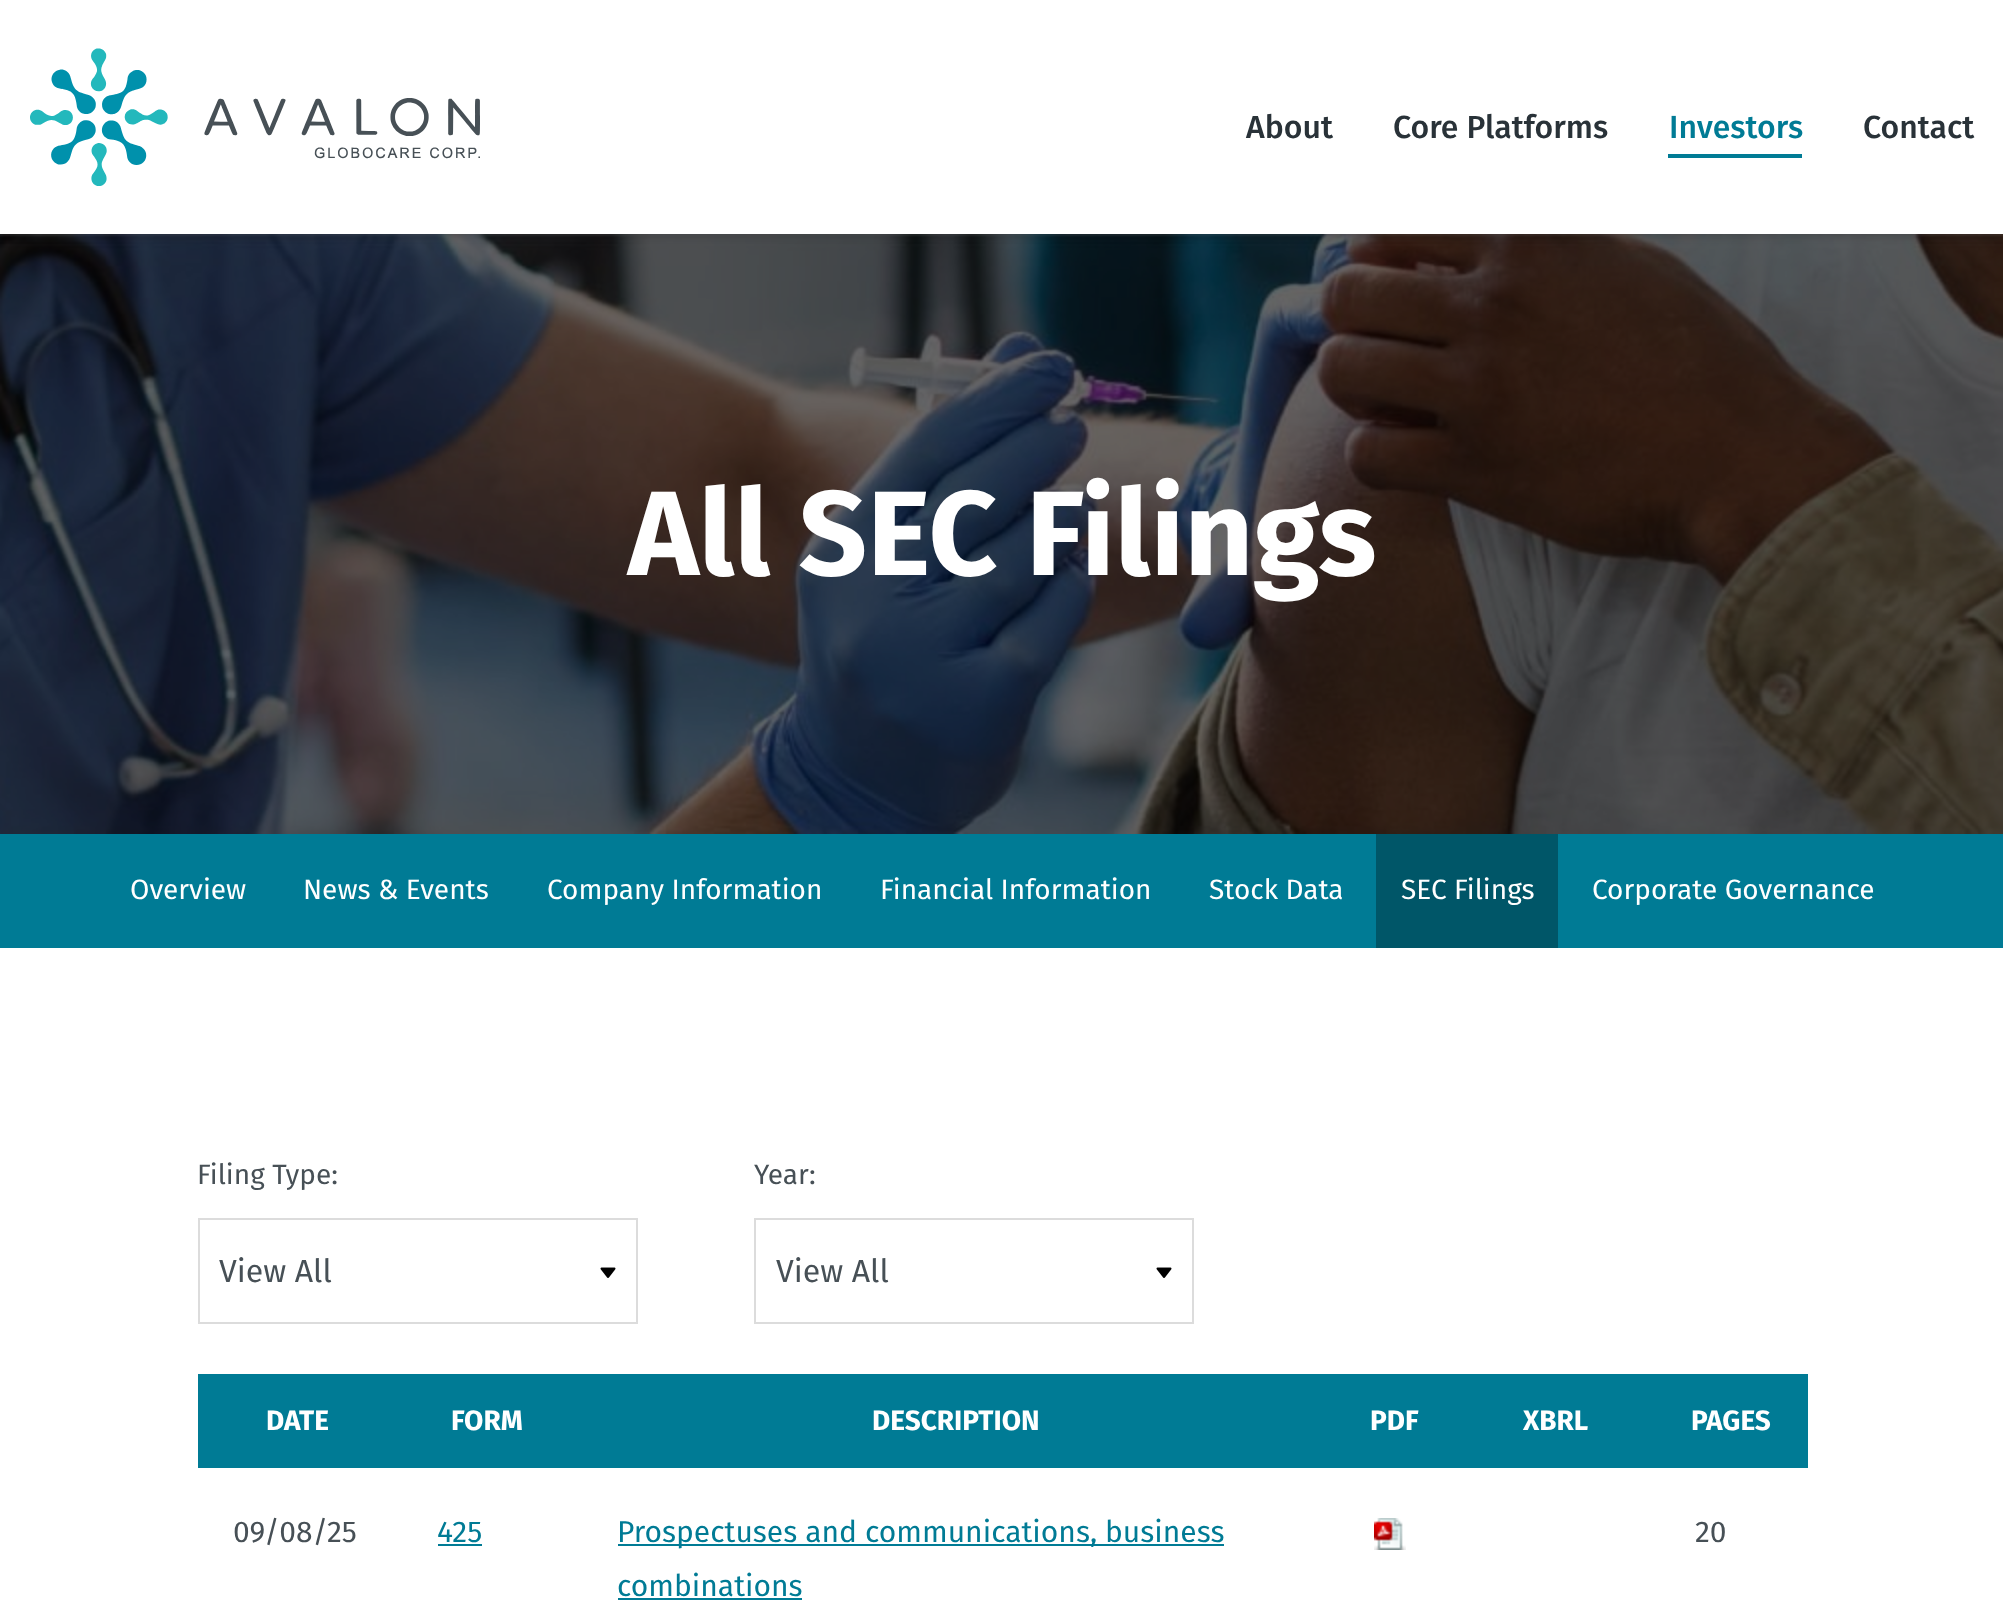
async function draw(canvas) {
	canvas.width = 2003;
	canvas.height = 1604;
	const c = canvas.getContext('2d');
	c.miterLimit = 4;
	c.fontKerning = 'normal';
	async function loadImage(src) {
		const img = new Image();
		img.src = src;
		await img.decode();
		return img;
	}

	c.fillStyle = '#fff';
	c.fillRect(0, 0, 2003, 1604);
	c.drawImage(await loadImage('img2.png'), 0, 234, 2003, 600);
	c.fillStyle = '#0000004d';
	c.filter = 'blur(5px)';
	c.beginPath();
	c.rect(0, 0, 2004, 234);
	c.fill();
	c.filter = 'none';
	c.fillStyle = '#fff';
	c.fillRect(0, 0, 2003, 234);
	c.drawImage(await loadImage('img1.png'), 30, 48, 450, 138);
	c.font = '500 32px Fira Sans';
	c.fillStyle = '#293238';
	c.fillText('About', 1246, 138);
	c.fillText('Core Platforms', 1393, 138);
	c.fillStyle = '#007b95';
	c.fillText('Investors', 1669, 138);
	c.fillRect(1668, 154, 134, 4);
	c.fillStyle = '#293238';
	c.fillText('Contact', 1863, 138);
	c.font = 'bold 120px Fira Sans';
	c.fillStyle = '#fff';
	c.fillText('All SEC Filings', 628, 575);
	c.fillStyle = '#007b95';
	c.fillRect(0, 834, 2003, 114);
	c.font = '28px Fira Sans';
	c.fillStyle = '#fff';
	for (const [text, x, y] of [
		['Overview', 130, 899],
		['News & Events', 303, 899],
		['Company Information', 547, 899],
		['Financial Information', 880, 899],
		['Stock Data', 1209, 899],
	]) {
		c.fillText(text, x, y);
	}
	c.fillStyle = '#005668';
	c.fillRect(1376, 834, 182, 114);
	c.fillStyle = '#fff';
	c.fillText('SEC Filings', 1401, 899);
	c.fillText('Corporate Governance', 1592, 899);
	c.fillStyle = '#475056';
	c.fillText('Filing Type:', 197, 1184);
	c.drawImage(await loadImage('img3.png'), 600, 1267, 16, 11);
	c.strokeStyle = '#dcdcdc';
	c.lineWidth = 2;
	c.strokeRect(199, 1219, 438, 104);
	c.font = '32px Fira Sans';
	c.fillText('View All', 219, 1282);
	c.font = '28px Fira Sans';
	c.fillText('Year:', 754, 1184);
	c.drawImage(await loadImage('img3.png'), 1156, 1267, 16, 11);
	c.strokeRect(755, 1219, 438, 104);
	c.font = '32px Fira Sans';
	c.fillText('View All', 776, 1282);
	c.fillStyle = '#007b95';
	c.fillRect(198, 1374, 1610, 94);
	c.font = 'bold 28px Fira Sans';
	c.fillStyle = '#fff';
	for (const [text, x, y] of [
		['DATE', 266, 1430],
		['FORM', 451, 1430],
		['DESCRIPTION', 872, 1430],
		['PDF', 1370, 1430],
		['XBRL', 1523, 1430],
		['PAGES', 1691, 1430],
	]) {
		c.fillText(text, x, y);
	}
	c.font = '30px Fira Sans';
	c.fillStyle = '#475056';
	c.fillText('09/08/25', 233, 1542);
	c.fillStyle = '#007b95';
	c.fillText('425', 437, 1542);
	c.fillRect(438, 1544, 44, 2);
	c.fillRect(618, 1544, 606, 2);
	c.fillText('Prospectuses and communications, business', 617, 1542);
	c.fillText('combinations', 617, 1596);
	c.fillRect(618, 1598, 184, 2);
	c.drawImage(await loadImage('img4.png'), 1374, 1518, 32, 32);
	c.fillStyle = '#475056';
	c.fillText('20', 1695, 1542);
}

draw(document.querySelector('canvas'));
